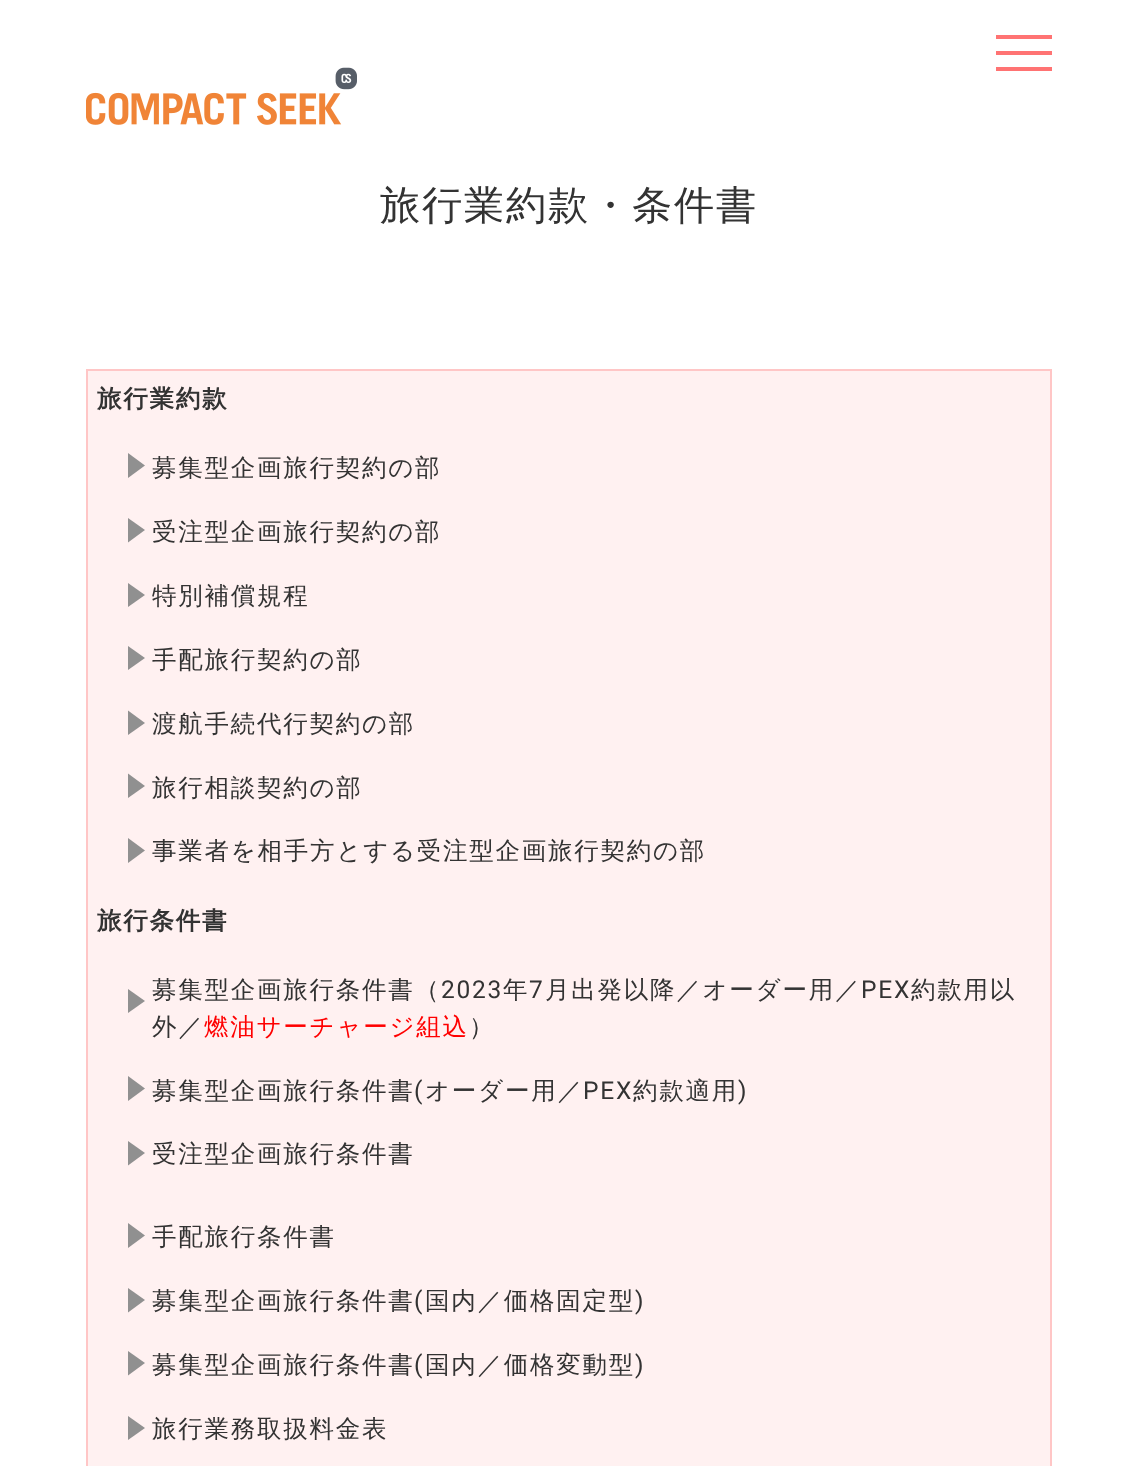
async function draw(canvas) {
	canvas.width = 1136;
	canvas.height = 1466;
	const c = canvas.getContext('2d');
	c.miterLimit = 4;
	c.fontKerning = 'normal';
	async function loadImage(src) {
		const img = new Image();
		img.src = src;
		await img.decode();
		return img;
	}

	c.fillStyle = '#fff';
	c.fillRect(0, 0, 1136, 1466);
	for (const [x, y, w, h, color] of [
		[996, 35, 56, 4, '#ff7373'],
		[996, 51, 56, 4, '#ff7373'],
		[996, 67, 56, 4, '#ff7373'],
	]) {
		c.fillStyle = color;
		c.fillRect(x, y, w, h);
	}
	c.drawImage(await loadImage('img1.png'), 86, 67, 271, 58);
	c.letterSpacing = '1.75px';
	c.font = '500 40.25px WenQuanYi Zen Hei';
	c.fillStyle = '#333';
	c.fillText('旅行業約款・条件書', 380, 219);
	c.fillStyle = '#fff1f1';
	c.beginPath();
	c.rect(87, 370, 964, 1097);
	c.fill();
	c.strokeStyle = '#ffc6c6';
	c.lineWidth = 2;
	c.stroke();
	c.font = 'bold 24.5px WenQuanYi Zen Hei';
	c.fillStyle = '#333';
	c.fillText('旅行業約款', 97, 407);
	c.fillStyle = '#909090';
	c.beginPath();
	c.moveTo(128, 478);
	c.lineTo(128, 453);
	c.lineTo(145, 465.5);
	c.closePath();
	c.fill();
	c.font = '500 24.5px WenQuanYi Zen Hei';
	c.fillStyle = '#333';
	c.fillText('募集型企画旅行契約の部', 152, 476);
	c.fillStyle = '#909090';
	c.beginPath();
	c.moveTo(128, 542.5);
	c.lineTo(128, 518);
	c.lineTo(145, 530);
	c.closePath();
	c.fill();
	c.fillStyle = '#333';
	c.fillText('受注型企画旅行契約の部', 152, 540);
	c.fillStyle = '#909090';
	c.beginPath();
	c.moveTo(128, 607);
	c.lineTo(128, 583);
	c.lineTo(145, 595);
	c.closePath();
	c.fill();
	c.fillStyle = '#333';
	c.fillText('特別補償規程', 152, 604);
	c.fillStyle = '#909090';
	c.beginPath();
	c.moveTo(128, 670);
	c.lineTo(128, 646);
	c.lineTo(145, 658);
	c.closePath();
	c.fill();
	c.fillStyle = '#333';
	c.fillText('手配旅行契約の部', 152, 668);
	c.fillStyle = '#909090';
	c.beginPath();
	c.moveTo(128, 735);
	c.lineTo(128, 710.5);
	c.lineTo(145, 723);
	c.closePath();
	c.fill();
	c.fillStyle = '#333';
	c.fillText('渡航手続代行契約の部', 152, 732);
	c.fillStyle = '#909090';
	c.beginPath();
	c.moveTo(128, 798);
	c.lineTo(128, 773.5);
	c.lineTo(145, 786);
	c.closePath();
	c.fill();
	c.fillStyle = '#333';
	c.fillText('旅行相談契約の部', 152, 796);
	c.fillStyle = '#909090';
	c.beginPath();
	c.moveTo(128, 863);
	c.lineTo(128, 838);
	c.lineTo(145, 850.5);
	c.closePath();
	c.fill();
	c.fillStyle = '#333';
	c.fillText('事業者を相手方とする受注型企画旅行契約の部', 152, 859);
	c.font = 'bold 24.5px WenQuanYi Zen Hei';
	c.fillText('旅行条件書', 97, 929);
	c.fillStyle = '#909090';
	c.beginPath();
	c.moveTo(128, 1013);
	c.lineTo(128, 989);
	c.lineTo(145, 1001);
	c.closePath();
	c.fill();
	c.font = '500 24.5px WenQuanYi Zen Hei';
	c.fillStyle = '#333';
	c.fillText('募集型企画旅行条件書（', 152, 998);
	c.font = '24.5px Roboto';
	c.fillText('2023', 441, 998);
	c.font = '500 24.5px WenQuanYi Zen Hei';
	c.fillText('年', 503, 998);
	c.font = '24.5px Roboto';
	c.fillText('7', 529, 998);
	c.font = '500 24.5px WenQuanYi Zen Hei';
	c.fillText('月出発以降／オーダー用／', 545, 998);
	c.font = '24.5px Roboto';
	c.fillText('PEX', 861, 998);
	c.font = '500 24.5px WenQuanYi Zen Hei';
	c.fillText('約款用以', 911, 998);
	c.fillText('外／', 152, 1035);
	c.fillStyle = '#f00';
	c.fillText('燃油サーチャージ組込', 204, 1035);
	c.fillStyle = '#333';
	c.fillText('）', 469, 1035);
	c.fillStyle = '#909090';
	c.beginPath();
	c.moveTo(128, 1101);
	c.lineTo(128, 1076);
	c.lineTo(145, 1088.5);
	c.closePath();
	c.fill();
	c.fillStyle = '#333';
	c.fillText('募集型企画旅行条件書', 152, 1099);
	c.font = '24.5px Roboto';
	c.fillText('(', 414, 1099);
	c.font = '500 24.5px WenQuanYi Zen Hei';
	c.fillText('オーダー用／', 425, 1099);
	c.font = '24.5px Roboto';
	c.fillText('PEX', 583, 1099);
	c.font = '500 24.5px WenQuanYi Zen Hei';
	c.fillText('約款適用', 633, 1099);
	c.font = '24.5px Roboto';
	c.fillText(')', 738, 1099);
	c.fillStyle = '#909090';
	c.beginPath();
	c.moveTo(128, 1165.5);
	c.lineTo(128, 1141);
	c.lineTo(145, 1153);
	c.closePath();
	c.fill();
	c.font = '500 24.5px WenQuanYi Zen Hei';
	c.fillStyle = '#333';
	c.fillText('受注型企画旅行条件書', 152, 1162);
	c.fillStyle = '#909090';
	c.beginPath();
	c.moveTo(128, 1248);
	c.lineTo(128, 1223);
	c.lineTo(145, 1235.5);
	c.closePath();
	c.fill();
	c.fillStyle = '#333';
	c.fillText('手配旅行条件書', 152, 1245);
	c.fillStyle = '#909090';
	c.beginPath();
	c.moveTo(128, 1312.5);
	c.lineTo(128, 1288);
	c.lineTo(145, 1300);
	c.closePath();
	c.fill();
	c.fillStyle = '#333';
	c.fillText('募集型企画旅行条件書', 152, 1309);
	c.font = '24.5px Roboto';
	c.fillText('(', 414, 1309);
	c.font = '500 24.5px WenQuanYi Zen Hei';
	c.fillText('国内／価格固定型', 425, 1309);
	c.font = '24.5px Roboto';
	c.fillText(')', 635, 1309);
	c.fillStyle = '#909090';
	c.beginPath();
	c.moveTo(128, 1375.5);
	c.lineTo(128, 1351);
	c.lineTo(145, 1363);
	c.closePath();
	c.fill();
	c.font = '500 24.5px WenQuanYi Zen Hei';
	c.fillStyle = '#333';
	c.fillText('募集型企画旅行条件書', 152, 1373);
	c.font = '24.5px Roboto';
	c.fillText('(', 414, 1373);
	c.font = '500 24.5px WenQuanYi Zen Hei';
	c.fillText('国内／価格変動型', 425, 1373);
	c.font = '24.5px Roboto';
	c.fillText(')', 635, 1373);
	c.fillStyle = '#909090';
	c.beginPath();
	c.moveTo(128, 1440);
	c.lineTo(128, 1416);
	c.lineTo(145, 1428);
	c.closePath();
	c.fill();
	c.font = '500 24.5px WenQuanYi Zen Hei';
	c.fillStyle = '#333';
	c.fillText('旅行業務取扱料金表', 152, 1437);
}

draw(document.querySelector('canvas'));
